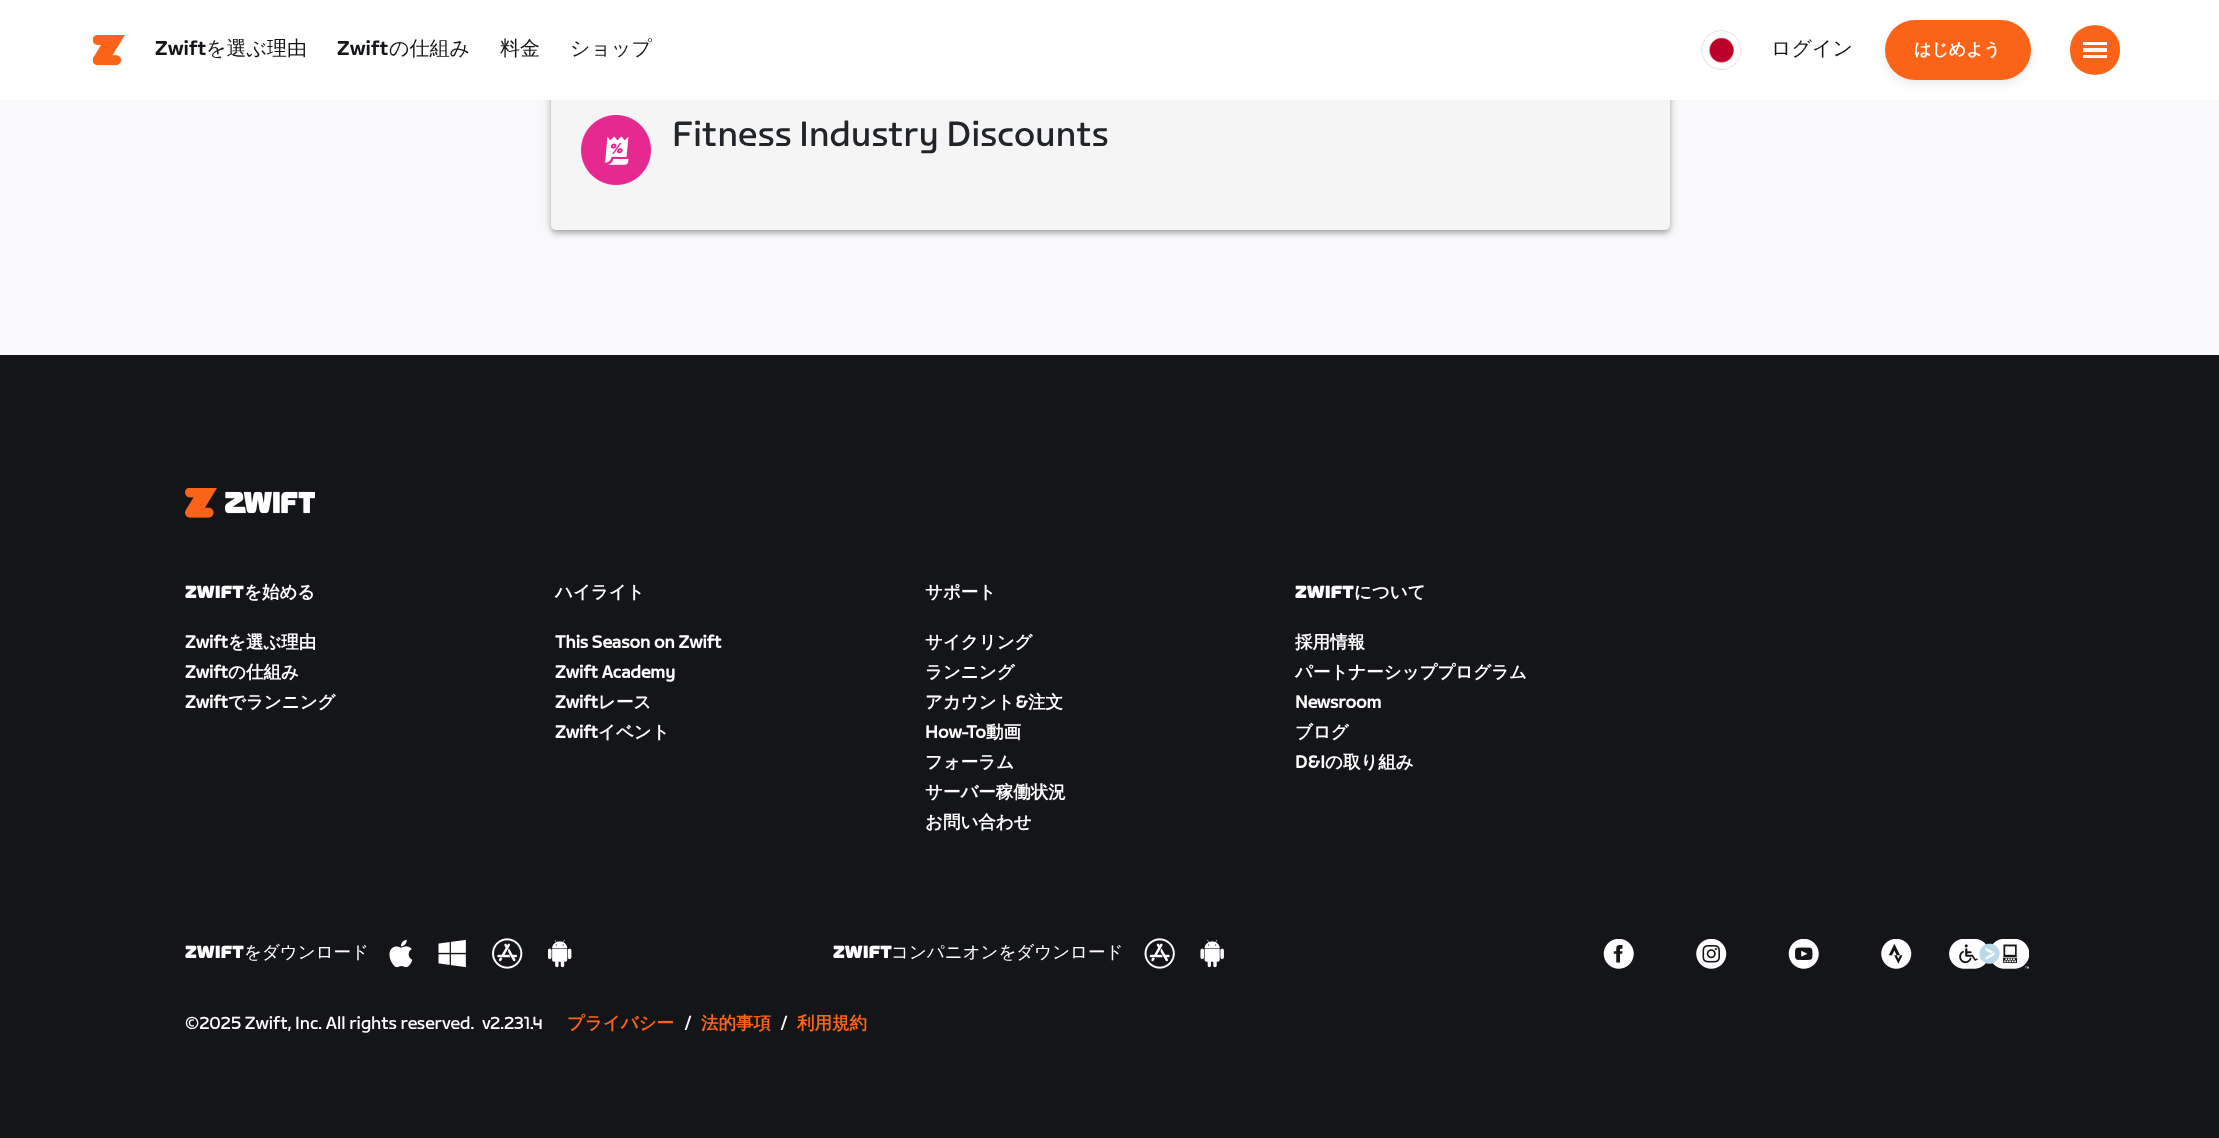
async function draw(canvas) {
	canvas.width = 2219;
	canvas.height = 1138;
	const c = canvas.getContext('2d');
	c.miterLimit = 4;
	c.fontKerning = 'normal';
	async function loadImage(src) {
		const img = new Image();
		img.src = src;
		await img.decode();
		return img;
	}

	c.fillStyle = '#f9f9fb';
	c.fillRect(0, 0, 2219, 1138);
	c.fillStyle = '#00000033';
	c.filter = 'blur(5px)';
	c.beginPath();
	c.roundRect(551, -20, 1119, 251, 5);
	c.fill();
	c.filter = 'none';
	c.fillStyle = '#0000001f';
	c.filter = 'blur(2px)';
	c.beginPath();
	c.roundRect(554, -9, 1114, 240, 2.5);
	c.fill();
	c.filter = 'none';
	c.fillStyle = '#00000024';
	c.filter = 'blur(2.5px)';
	c.beginPath();
	c.roundRect(551, -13, 1119, 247, 5);
	c.fill();
	c.filter = 'none';
	c.fillStyle = '#f5f5f5';
	c.beginPath();
	c.roundRect(551, -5, 1119, 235, 5);
	c.fill();
	c.fillStyle = '#fff';
	c.fillRect(0, 0, 2219, 100);
	c.drawImage(await loadImage('img1.png'), 93, 35, 32, 31);
	c.font = '500 20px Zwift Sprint';
	c.fillStyle = '#141518';
	c.fillText('Zwift', 155, 55);
	c.font = '500 20px WenQuanYi Zen Hei';
	c.fillText('を選ぶ理由', 206, 55);
	c.font = '500 20px Zwift Sprint';
	c.fillText('Zwift', 337, 55);
	c.font = '500 20px WenQuanYi Zen Hei';
	for (const [text, x, y] of [
		['の仕組み', 389, 55],
		['料金', 500, 55],
		['ショップ', 570, 55],
	]) {
		c.fillText(text, x, y);
	}
	c.drawImage(await loadImage('img2.png'), 1701, 30, 41, 40);
	c.fillText('ログイン', 1771, 55);
	c.fillStyle = '#00000014';
	c.filter = 'blur(5px)';
	c.beginPath();
	c.roundRect(1885, 25, 146, 59, 29.5);
	c.fill();
	c.filter = 'none';
	c.fillStyle = '#fb6418';
	c.beginPath();
	c.roundRect(1885, 20, 146, 60, 30);
	c.fill();
	c.font = 'bold 17px WenQuanYi Zen Hei';
	c.fillStyle = '#fff';
	c.fillText('はじめよう', 1914, 55);
	c.fillStyle = '#fb6418';
	c.beginPath();
	c.moveTo(2070, 50);
	c.bezierCurveTo(2070, 17, 2120, 17, 2120, 50);
	c.bezierCurveTo(2120, 83, 2070, 83, 2070, 50);
	c.closePath();
	c.fill();
	for (const [x, y, w, h, color] of [
		[2083, 42, 24, 3, '#fff'],
		[2083, 48, 24, 4, '#fff'],
		[2083, 55, 24, 3, '#fff'],
	]) {
		c.fillStyle = color;
		c.fillRect(x, y, w, h);
	}
	c.drawImage(await loadImage('img3.png'), 581, 115, 70, 70);
	c.letterSpacing = '0.25px';
	c.font = '35px Zwift Sprint';
	c.fillStyle = '#212529';
	c.fillText('Fitness Industry Discounts', 672, 146);
	c.fillStyle = '#141518';
	c.fillRect(0, 355, 2219, 783);
	c.drawImage(await loadImage('img4.png'), 185, 488, 32, 30);
	c.drawImage(await loadImage('img5.png'), 225, 491, 90, 23);
	c.letterSpacing = '0px';
	c.font = '900 17.5px Zwift Sprint';
	c.fillStyle = '#fff';
	c.fillText('ZWIFT', 185, 598);
	c.font = 'bold 17.5px WenQuanYi Zen Hei';
	c.fillText('を始める', 244, 598);
	c.font = 'bold 17.5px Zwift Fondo';
	c.fillText('Zwift', 185, 648);
	c.font = 'bold 17.5px WenQuanYi Zen Hei';
	c.fillText('を選ぶ理由', 228, 648);
	c.font = 'bold 17.5px Zwift Fondo';
	c.fillText('Zwift', 185, 678);
	c.font = 'bold 17.5px WenQuanYi Zen Hei';
	c.fillText('の仕組み', 228, 678);
	c.font = 'bold 17.5px Zwift Fondo';
	c.fillText('Zwift', 185, 708);
	c.font = 'bold 17.5px WenQuanYi Zen Hei';
	c.fillText('でランニング', 228, 708);
	c.fillText('ハイライト', 555, 598);
	c.font = 'bold 17.5px Zwift Fondo';
	for (const [text, x, y] of [
		['This Season on Zwift', 555, 648],
		['Zwift Academy', 555, 678],
		['Zwift', 555, 708],
	]) {
		c.fillText(text, x, y);
	}
	c.font = 'bold 17.5px WenQuanYi Zen Hei';
	c.fillText('レース', 598, 708);
	c.font = 'bold 17.5px Zwift Fondo';
	c.fillText('Zwift', 555, 738);
	c.font = 'bold 17.5px WenQuanYi Zen Hei';
	for (const [text, x, y] of [
		['イベント', 598, 738],
		['サポート', 925, 598],
		['サイクリング', 925, 648],
		['ランニング', 925, 678],
		['アカウント', 925, 708],
	]) {
		c.fillText(text, x, y);
	}
	c.font = 'bold 17.5px Zwift Fondo';
	c.fillText('&', 1015, 708);
	c.font = 'bold 17.5px WenQuanYi Zen Hei';
	c.fillText('注文', 1028, 708);
	c.font = 'bold 17.5px Zwift Fondo';
	c.fillText('How-To', 925, 738);
	c.font = 'bold 17.5px WenQuanYi Zen Hei';
	for (const [text, x, y] of [
		['動画', 986, 738],
		['フォーラム', 925, 768],
		['サーバー稼働状況', 925, 798],
		['お問い合わせ', 925, 828],
	]) {
		c.fillText(text, x, y);
	}
	c.font = '900 17.5px Zwift Sprint';
	c.fillText('ZWIFT', 1295, 598);
	c.font = 'bold 17.5px WenQuanYi Zen Hei';
	for (const [text, x, y] of [
		['について', 1354, 598],
		['採用情報', 1295, 648],
		['パートナーシッププログラム', 1295, 678],
	]) {
		c.fillText(text, x, y);
	}
	c.font = 'bold 17.5px Zwift Fondo';
	c.fillText('Newsroom', 1295, 708);
	c.font = 'bold 17.5px WenQuanYi Zen Hei';
	c.fillText('ブログ', 1295, 738);
	c.font = 'bold 17.5px Zwift Fondo';
	c.fillText('D&I', 1295, 768);
	c.font = 'bold 17.5px WenQuanYi Zen Hei';
	c.fillText('の取り組み', 1325, 768);
	c.font = '900 17.5px Zwift Sprint';
	c.fillText('ZWIFT', 185, 958);
	c.font = '500 17.5px WenQuanYi Zen Hei';
	c.fillText('をダウンロード', 244, 958);
	c.drawImage(await loadImage('img6.png'), 389, 939, 24, 29);
	c.drawImage(await loadImage('img7.png'), 438, 939, 28, 29);
	c.drawImage(await loadImage('img8.png'), 492, 938, 31, 31);
	c.drawImage(await loadImage('img9.png'), 548, 939, 24, 29);
	c.font = '900 17.5px Zwift Sprint';
	c.fillText('ZWIFT', 833, 958);
	c.font = '500 17.5px WenQuanYi Zen Hei';
	c.fillText('コンパニオンをダウンロード', 891, 958);
	c.drawImage(await loadImage('img10.png'), 1144, 938, 31, 31);
	c.drawImage(await loadImage('img11.png'), 1200, 939, 24, 29);
	c.drawImage(await loadImage('img12.png'), 1603, 939, 31, 30);
	c.drawImage(await loadImage('img13.png'), 1696, 939, 31, 30);
	c.drawImage(await loadImage('img14.png'), 1788, 939, 31, 30);
	c.drawImage(await loadImage('img15.png'), 1881, 939, 31, 30);
	c.drawImage(await loadImage('img16.png'), 1949, 939, 80, 30);
	c.font = '17.5px Zwift Fondo';
	for (const [text, x, y] of [
		['©2025 Zwift, Inc. All rights reserved.', 185, 1029],
		['v', 482, 1029],
		['2.231.4', 490, 1029],
	]) {
		c.fillText(text, x, y);
	}
	c.font = 'bold 17.5px WenQuanYi Zen Hei';
	c.fillStyle = '#fb6418';
	c.fillText('プライバシー', 567, 1029);
	c.font = '17.5px Zwift Fondo';
	c.fillStyle = '#fff';
	c.fillText('/', 685, 1029);
	c.font = 'bold 17.5px WenQuanYi Zen Hei';
	c.fillStyle = '#fb6418';
	c.fillText('法的事項', 701, 1029);
	c.font = '17.5px Zwift Fondo';
	c.fillStyle = '#fff';
	c.fillText('/', 781, 1029);
	c.font = 'bold 17.5px WenQuanYi Zen Hei';
	c.fillStyle = '#fb6418';
	c.fillText('利用規約', 797, 1029);
}

draw(document.querySelector('canvas'));
